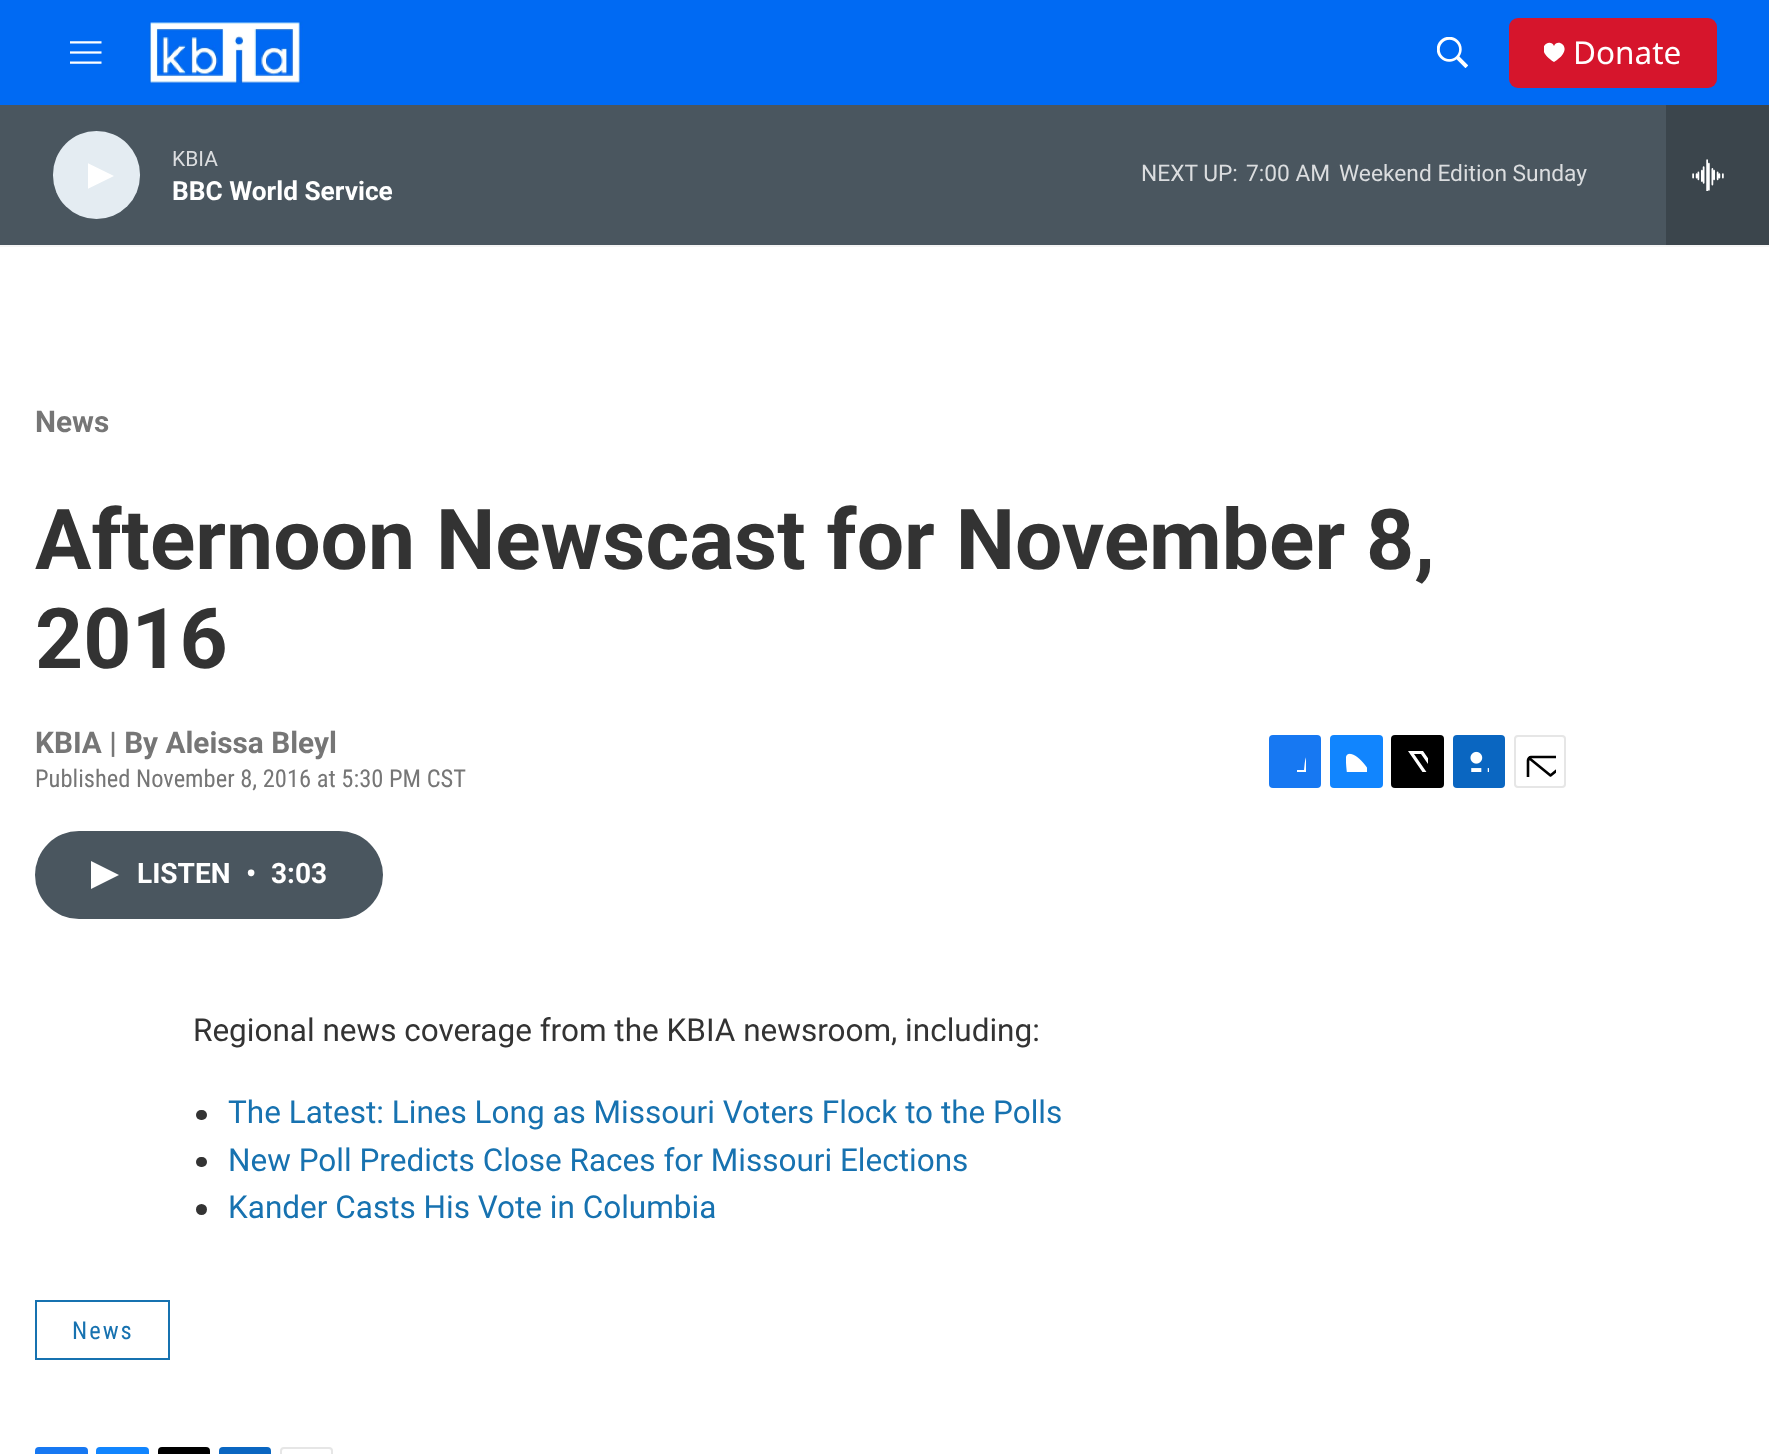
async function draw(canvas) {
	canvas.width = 1769;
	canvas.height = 1454;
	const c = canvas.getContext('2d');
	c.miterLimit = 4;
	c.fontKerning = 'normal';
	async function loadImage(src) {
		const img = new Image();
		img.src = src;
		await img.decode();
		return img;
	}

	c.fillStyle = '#fff';
	c.fillRect(0, 0, 1769, 1454);
	c.fillStyle = '#006af3';
	c.fillRect(0, 0, 1769, 105);
	c.fillStyle = '#f5f5f5';
	c.fillRect(0, 245, 1769, 2);
	c.drawImage(await loadImage('img1.png'), 70, 41, 32, 23);
	c.drawImage(await loadImage('img2.png'), 149, 21, 154, 63);
	c.drawImage(await loadImage('img3.png'), 1437, 37, 31, 31);
	c.fillStyle = '#d6152c';
	c.beginPath();
	c.roundRect(1509, 18, 208, 70, 9);
	c.fill();
	c.save();
	c.beginPath();
	c.rect(1544, 42, 21, 21);
	c.clip();
	c.fillStyle = '#fff';
	c.beginPath();
	c.moveTo(1554, 46);
	c.bezierCurveTo(1550.5, 37, 1532, 48.5, 1554, 62);
	c.bezierCurveTo(1576, 48.5, 1557.5, 37, 1554, 46);
	c.closePath();
	c.fill();
	c.restore();
	c.font = '31.5px Noto Sans';
	c.fillStyle = '#fff';
	c.fillText('Donate', 1573, 64);
	c.fillStyle = '#4a565f';
	c.fillRect(0, 105, 1666, 140);
	c.fillStyle = '#e4ecf2';
	c.beginPath();
	c.roundRect(53, 131, 87, 88, 43.5);
	c.fill();
	c.save();
	c.beginPath();
	c.rect(88, 159, 26, 34);
	c.clip();
	c.fillStyle = '#fff';
	c.beginPath();
	c.moveTo(87.5, 163);
	c.lineTo(114, 176);
	c.lineTo(87.5, 189);
	c.closePath();
	c.fill();
	c.restore();
	c.font = '21px Roboto';
	c.fillStyle = '#dbdddf';
	c.fillText('KBIA', 172, 166);
	c.font = 'bold 26.25px "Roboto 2"';
	c.fillStyle = '#fff';
	c.fillText('BBC World Service', 172, 200);
	c.font = '22.75px Roboto';
	c.fillStyle = '#dbdddf';
	for (const [text, x, y] of [
		['NEXT UP:', 1141, 181],
		['7:00 AM', 1246, 181],
		['Weekend Edition Sunday', 1339, 181],
	]) {
		c.fillText(text, x, y);
	}
	c.fillStyle = '#3b454c';
	c.fillRect(1666, 105, 103, 140);
	c.drawImage(await loadImage('img4.png'), 1692, 159, 32, 32);
	c.font = 'bold 29.75px Roboto';
	c.fillStyle = '#767676';
	c.fillText('News', 35, 432);
	c.font = 'bold 84px Roboto';
	c.fillStyle = '#333';
	c.fillText('Afternoon Newscast for November 8,', 35, 569);
	c.fillText('2016', 35, 668);
	c.font = 'bold 29.75px Roboto';
	c.fillStyle = '#767676';
	c.fillText('KBIA | By Aleissa Bleyl', 35, 753);
	c.font = '24.5px Roboto Condensed';
	c.fillText('Published November 8, 2016 at 5:30 PM CST', 35, 787);
	c.fillStyle = '#1778f2';
	c.beginPath();
	c.roundRect(1269, 735, 52, 53, 4);
	c.fill();
	c.save();
	c.beginPath();
	c.rect(1285, 751, 21, 21);
	c.clip();
	c.fillStyle = '#fff';
	c.beginPath();
	c.moveTo(1314, 788);
	c.lineTo(1304, 788);
	c.lineTo(1304, 779);
	c.lineTo(1297, 779);
	c.lineTo(1297, 770);
	c.lineTo(1304, 770);
	c.bezierCurveTo(1305.5, 757, 1304.5, 750, 1321, 752);
	c.lineTo(1321, 760);
	c.bezierCurveTo(1312, 760, 1314, 762, 1314, 770);
	c.lineTo(1321, 770);
	c.lineTo(1321, 779);
	c.lineTo(1314, 779);
	c.closePath();
	c.fill();
	c.restore();
	c.fillStyle = '#1185fe';
	c.beginPath();
	c.roundRect(1330, 735, 53, 53, 4);
	c.fill();
	c.drawImage(await loadImage('img5.png'), 1346, 753, 21, 19);
	c.fillStyle = '#000';
	c.beginPath();
	c.roundRect(1391, 735, 53, 53, 4);
	c.fill();
	c.save();
	c.beginPath();
	c.rect(1407, 751, 21, 21);
	c.clip();
	c.fillStyle = '#fff';
	c.beginPath();
	c.moveTo(1438, 773);
	c.lineTo(1444, 781.5);
	c.bezierCurveTo(1444, 783, 1444, 785, 1443.5, 786);
	c.lineTo(1421, 754);
	c.lineTo(1414, 754);
	c.lineTo(1437.5, 788);
	c.lineTo(1433.5, 788);
	c.lineTo(1430, 783);
	c.lineTo(1425.5, 788);
	c.lineTo(1421, 788);
	c.lineTo(1428, 780);
	c.lineTo(1408, 751);
	c.lineTo(1423, 751);
	c.lineTo(1436, 770);
	c.lineTo(1444, 761);
	c.lineTo(1444, 766);
	c.closePath();
	c.fill();
	c.restore();
	c.fillStyle = '#0a66c1';
	c.beginPath();
	c.roundRect(1453, 735, 52, 53, 4);
	c.fill();
	c.drawImage(await loadImage('img6.png'), 1470, 751, 19, 21);
	c.beginPath();
	c.roundRect(1515, 736, 50, 51, 3);
	c.strokeStyle = '#e6e6e6';
	c.lineWidth = 2;
	c.stroke();
	c.save();
	c.beginPath();
	c.rect(1524, 746, 32, 31);
	c.clip();
	c.beginPath();
	c.moveTo(1573, 784);
	c.bezierCurveTo(1573, 785.5, 1571.5, 787, 1570, 787);
	c.lineTo(1531, 787);
	c.bezierCurveTo(1529.5, 787, 1528, 785.5, 1528, 784);
	c.lineTo(1528, 760.5);
	c.bezierCurveTo(1528, 758.5, 1529.5, 757, 1531, 757);
	c.lineTo(1570, 757);
	c.bezierCurveTo(1571.5, 757, 1573, 758.5, 1573, 760.5);
	c.closePath();
	c.moveTo(1572, 758);
	c.lineTo(1550.5, 775.5);
	c.lineTo(1529, 758);
	c.strokeStyle = '#000';
	c.lineWidth = 2.6;
	c.lineCap = 'round';
	c.lineJoin = 'round';
	c.stroke();
	c.restore();
	c.fillStyle = '#4a565f';
	c.beginPath();
	c.roundRect(35, 831, 348, 88, 44);
	c.fill();
	c.fillStyle = '#fff';
	c.beginPath();
	c.moveTo(91, 861);
	c.lineTo(119, 875);
	c.lineTo(91, 889);
	c.closePath();
	c.fill();
	c.font = 'bold 28px "Roboto 2"';
	for (const [text, x, y] of [
		['LISTEN', 137, 883],
		['•', 246, 883],
		['3:03', 271, 883],
	]) {
		c.fillText(text, x, y);
	}
	c.font = '31.5px Roboto';
	c.fillStyle = '#333';
	c.fillText('Regional news coverage from the KBIA newsroom, including:', 193, 1041);
	c.beginPath();
	c.roundRect(196, 1110, 11, 10, 5);
	c.fill();
	c.fillStyle = '#1772b0';
	c.fillText('The Latest: Lines Long as Missouri Voters Flock to the Polls', 228, 1123);
	c.fillStyle = '#333';
	c.beginPath();
	c.roundRect(196, 1157, 11, 10, 5);
	c.fill();
	c.fillStyle = '#1772b0';
	c.fillText('New Poll Predicts Close Races for Missouri Elections', 228, 1171);
	c.fillStyle = '#333';
	c.beginPath();
	c.arc(201.5, 1209.5, 5.5, 0, 2 * Math.PI);
	c.fill();
	c.fillStyle = '#1772b0';
	c.fillText('Kander Casts His Vote in Columbia', 228, 1218);
	c.strokeStyle = '#1772b0';
	c.strokeRect(36, 1301, 133, 58);
	c.letterSpacing = '2px';
	c.font = '24.5px Roboto Condensed';
	c.fillText('News', 72, 1339);
	c.fillStyle = '#1778f2';
	c.beginPath();
	c.roundRect(35, 1447, 53, 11, 4);
	c.fill();
	c.fillStyle = '#1185fe';
	c.beginPath();
	c.roundRect(96, 1447, 53, 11, 4);
	c.fill();
	c.fillStyle = '#000';
	c.beginPath();
	c.roundRect(158, 1447, 52, 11, 4);
	c.fill();
	c.fillStyle = '#0a66c1';
	c.beginPath();
	c.roundRect(219, 1447, 52, 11, 4);
	c.fill();
	c.beginPath();
	c.roundRect(281, 1448, 51, 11, 3);
	c.strokeStyle = '#e6e6e6';
	c.stroke();
}

draw(document.querySelector('canvas'));
